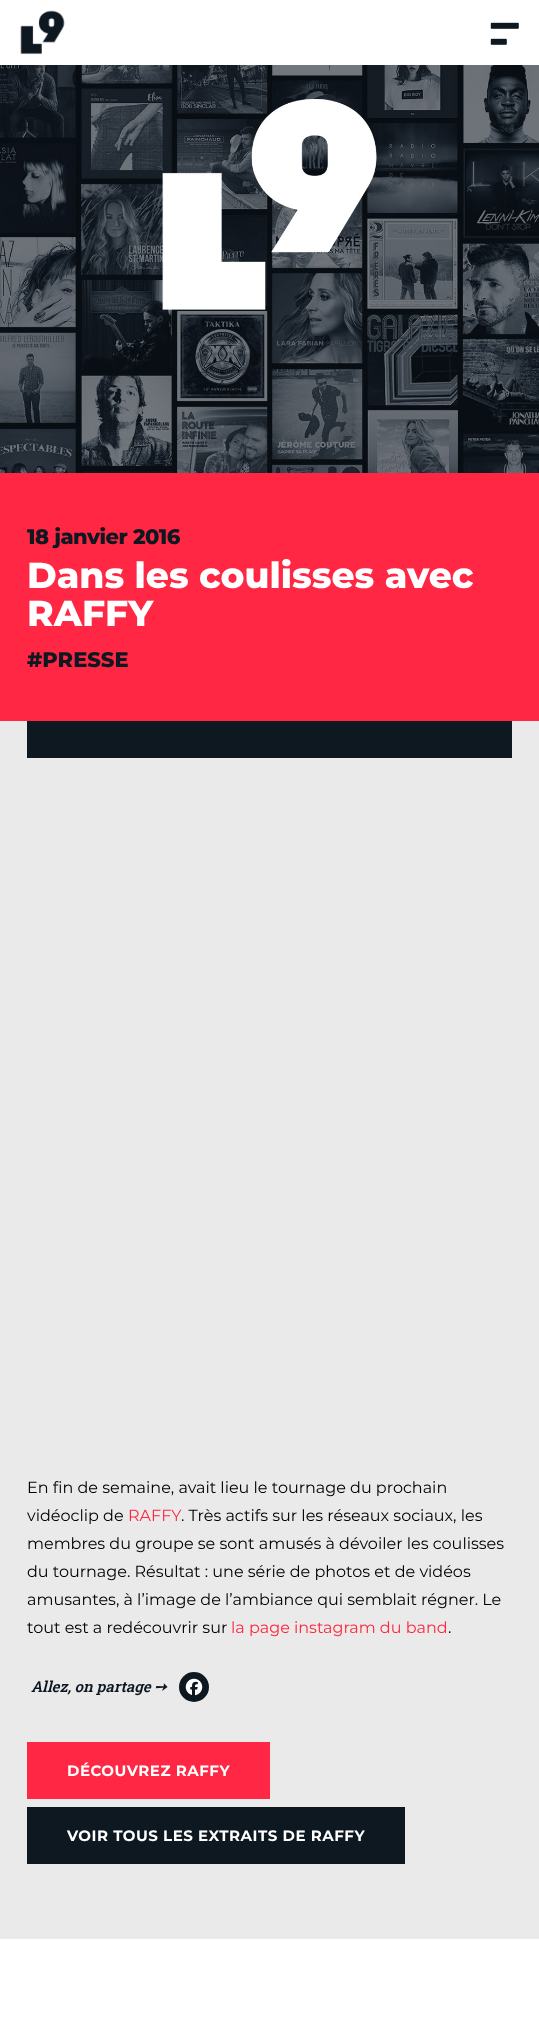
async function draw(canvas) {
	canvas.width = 539;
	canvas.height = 2030;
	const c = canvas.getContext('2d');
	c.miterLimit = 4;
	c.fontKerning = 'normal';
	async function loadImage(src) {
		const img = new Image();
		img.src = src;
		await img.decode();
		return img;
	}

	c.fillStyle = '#eaeaea';
	c.fillRect(0, 0, 539, 2030);
	c.fillStyle = '#fff';
	c.fillRect(0, 0, 539, 65);
	c.drawImage(await loadImage('img1.png'), 20, 10, 45, 45);
	c.drawImage(await loadImage('img2.png'), 490, 22, 29, 23);
	c.drawImage(await loadImage('img3.png'), 0, 65, 539, 408);
	c.fillStyle = '#ff2743';
	c.fillRect(0, 473, 539, 248);
	c.letterSpacing = '-0.5px';
	c.font = '800 21px Montserrat';
	c.fillStyle = '#0e1821';
	c.fillText('18 janvier 2016', 27, 544);
	c.letterSpacing = '0px';
	c.font = '800 36px Montserrat';
	c.fillStyle = '#fff';
	c.fillText('Dans les coulisses avec', 27, 588);
	c.fillText('RAFFY', 27, 626);
	c.font = '800 21px Montserrat';
	c.fillStyle = '#0e1821';
	c.fillText('#PRESSE', 27, 667);
	c.fillRect(27, 721, 485, 37);
	c.font = '16px Montserrat';
	c.fillStyle = '#000';
	c.fillText('En fin de semaine, avait lieu le tournage du prochain', 27, 1493);
	c.fillText('vidéoclip de', 27, 1521);
	c.fillStyle = '#ff273f';
	c.fillText('RAFFY', 128, 1521);
	c.fillStyle = '#000';
	for (const [text, x, y] of [
		['. Très actifs sur les réseaux sociaux, les', 181, 1521],
		['membres du groupe se sont amusés à dévoiler les coulisses', 27, 1549],
		['du tournage. Résultat : une série de photos et de vidéos', 27, 1577],
		['amusantes, à l’image de l’ambiance qui semblait régner. Le', 27, 1605],
		['tout est a redécouvrir sur', 27, 1633],
	]) {
		c.fillText(text, x, y);
	}
	c.fillStyle = '#ff273f';
	c.fillText('la page instagram du band', 231, 1633);
	c.fillStyle = '#000';
	c.fillText('.', 448, 1633);
	c.font = 'italic 600 15px Roboto Slab';
	c.fillStyle = '#0e1821';
	c.fillText('Allez, on partage', 31, 1692);
	c.font = 'italic bold 15px DejaVu Sans';
	c.fillText('➙', 154, 1692);
	c.beginPath();
	c.arc(194, 1687, 15, 0, 2 * Math.PI);
	c.fill();
	c.drawImage(await loadImage('img4.png'), 185, 1678, 18, 18);
	c.fillStyle = '#ff2743';
	c.fillRect(27, 1742, 243, 57);
	c.letterSpacing = '0.5px';
	c.font = 'bold 15px Montserrat';
	c.fillStyle = '#fff';
	c.fillText('DÉCOUVREZ RAFFY', 67, 1776);
	c.fillStyle = '#0e1821';
	c.fillRect(27, 1807, 378, 57);
	c.fillStyle = '#fff';
	c.fillText('VOIR TOUS LES EXTRAITS DE RAFFY', 67, 1841);
	c.fillRect(0, 1939, 539, 91);
}

draw(document.querySelector('canvas'));
